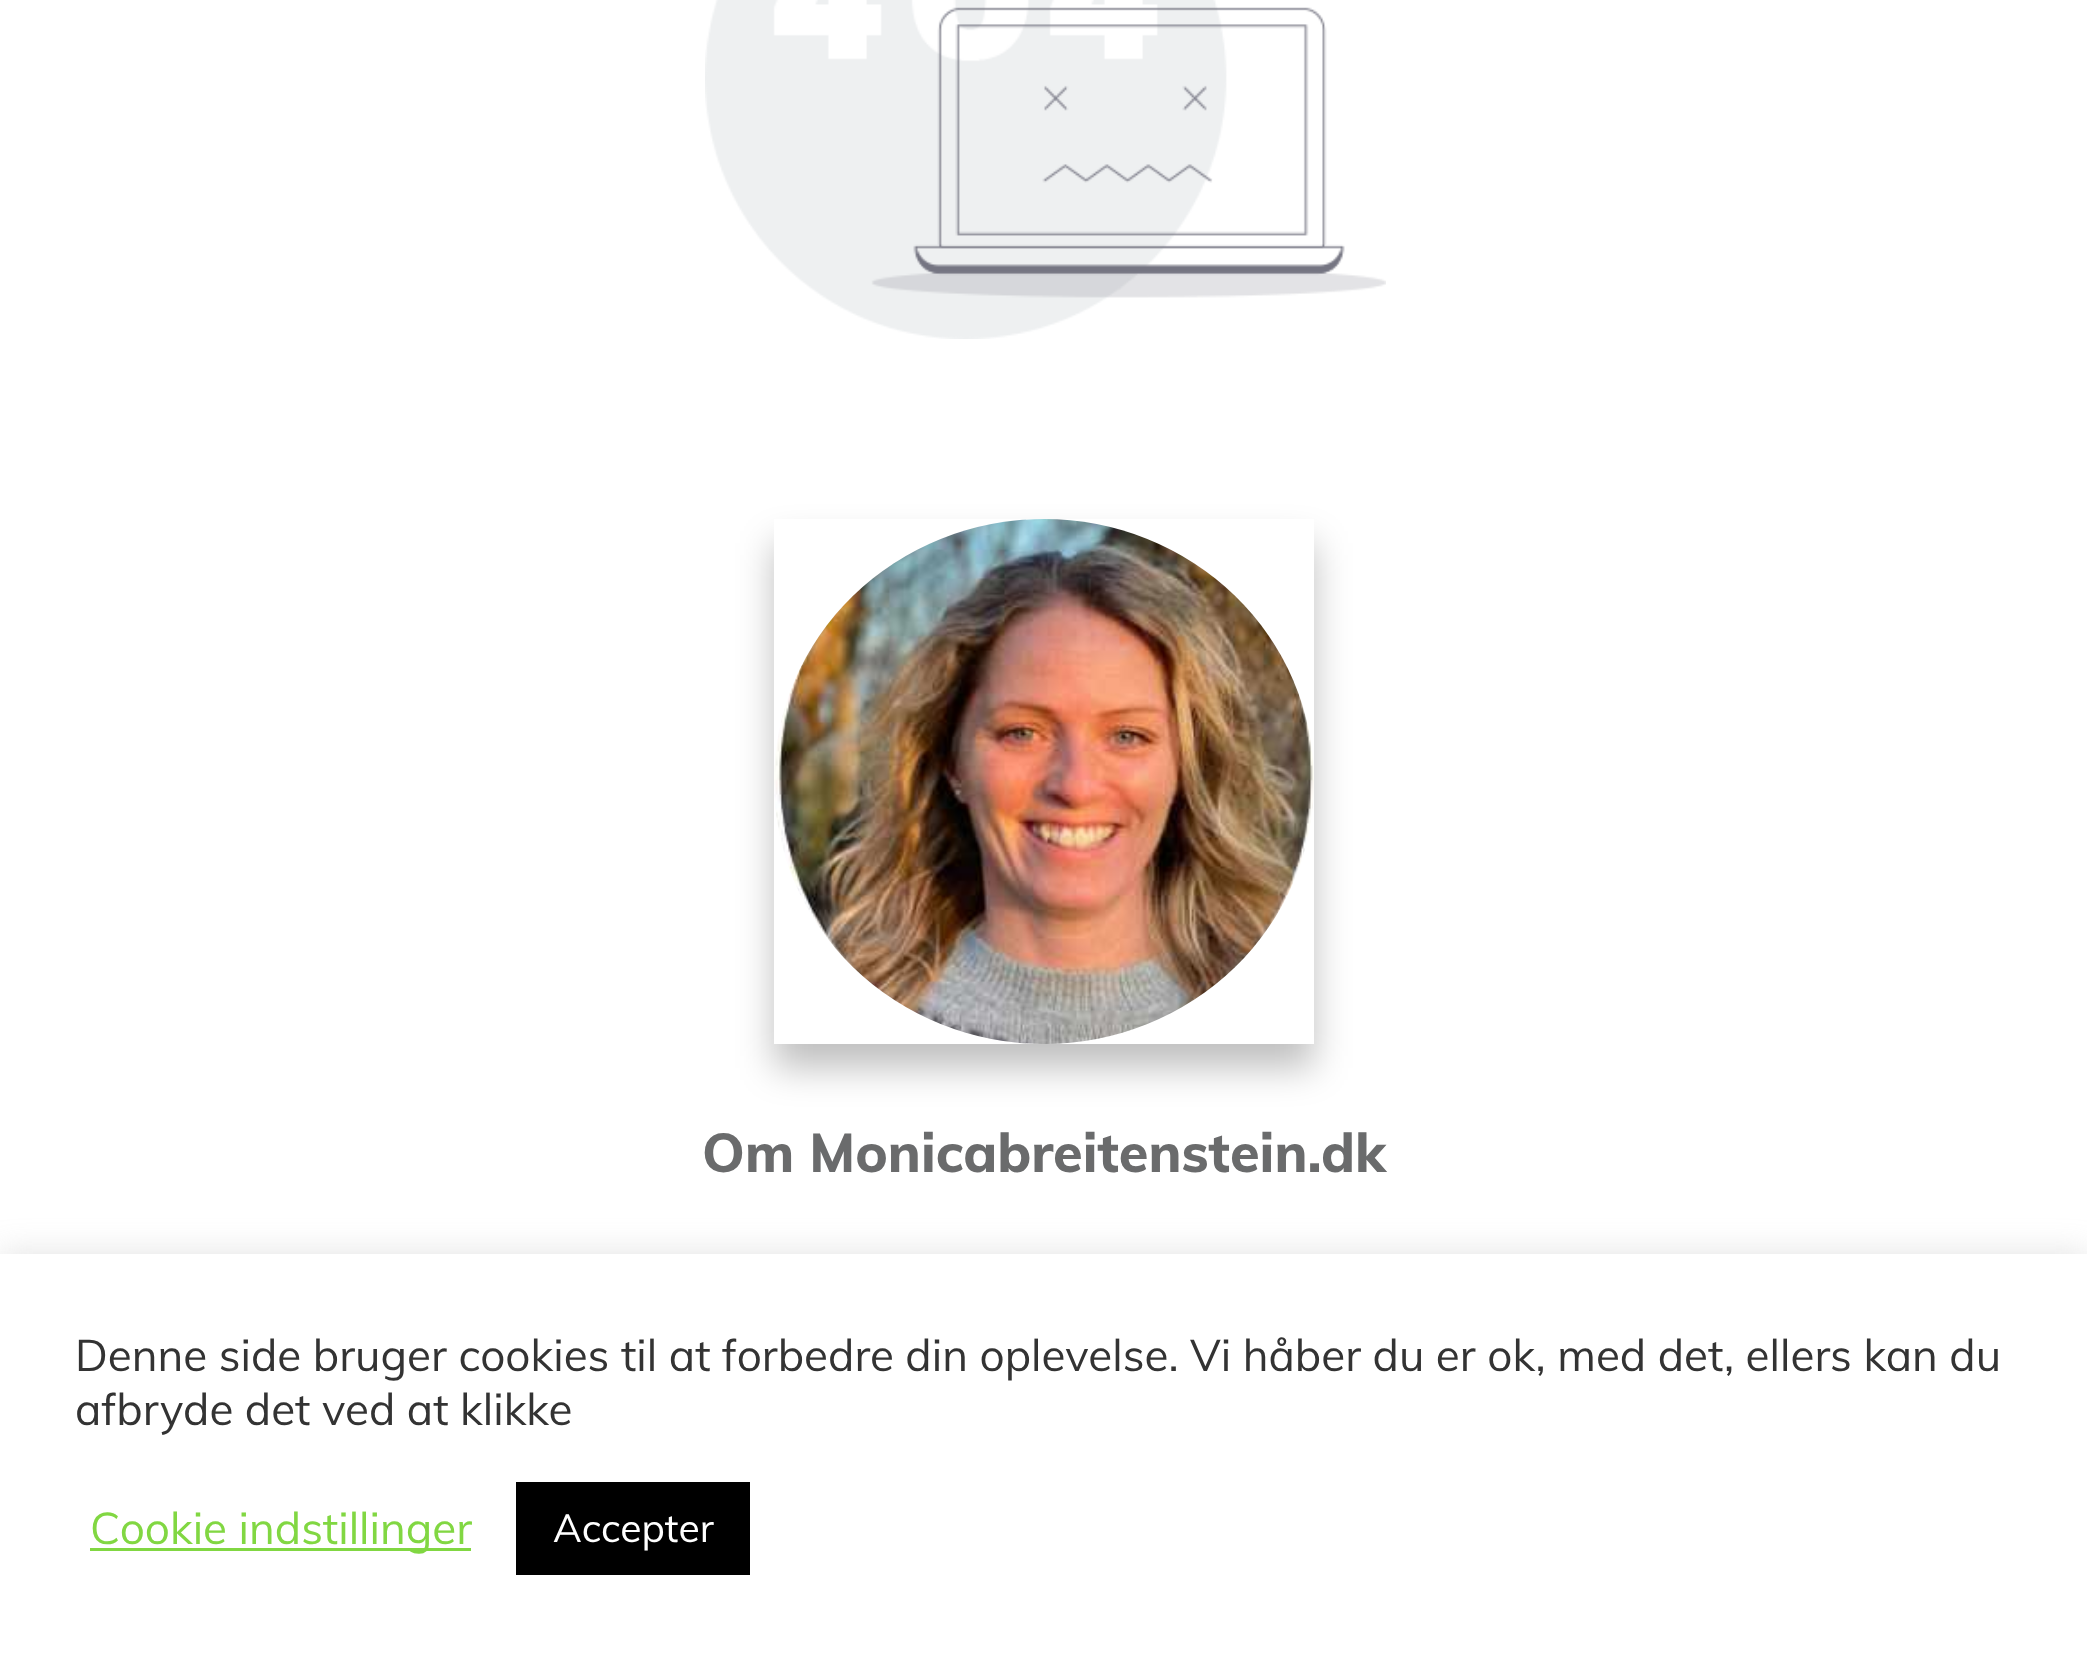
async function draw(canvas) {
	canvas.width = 2087;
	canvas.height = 1663;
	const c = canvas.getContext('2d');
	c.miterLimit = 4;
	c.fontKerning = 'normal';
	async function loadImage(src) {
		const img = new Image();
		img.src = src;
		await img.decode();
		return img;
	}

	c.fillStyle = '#fff';
	c.fillRect(0, 0, 2087, 1663);
	c.drawImage(await loadImage('img1.png'), 705, 0, 681, 339);
	c.save();
	c.beginPath();
	c.moveTo(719, 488);
	c.lineTo(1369, 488);
	c.lineTo(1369, 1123);
	c.lineTo(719, 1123);
	c.closePath();
	c.moveTo(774, 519);
	c.lineTo(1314, 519);
	c.lineTo(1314, 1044);
	c.lineTo(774, 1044);
	c.closePath();
	c.clip('evenodd');
	c.fillStyle = '#00000040';
	c.filter = 'blur(18px)';
	c.beginPath();
	c.rect(774, 543, 540, 525);
	c.fill();
	c.filter = 'none';
	c.restore();
	c.drawImage(await loadImage('img2.png'), 774, 519, 540, 525);
	c.font = '800 54px Muli';
	c.fillStyle = '#6a6b6c';
	c.fillText('Om Monicabreitenstein.dk', 702, 1172);
	c.fillStyle = '#acabab4d';
	c.filter = 'blur(15px)';
	c.beginPath();
	c.rect(0, 1251, 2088, 411);
	c.fill();
	c.filter = 'none';
	c.fillStyle = '#fff';
	c.fillRect(0, 1254, 2087, 409);
	c.font = '44px Muli';
	c.fillStyle = '#333';
	c.fillText('Denne side bruger cookies til at forbedre din oplevelse. Vi håber du er ok, med det, ellers kan du', 75, 1371);
	c.fillText('afbryde det ved at klikke', 75, 1425);
	c.fillStyle = '#81d742';
	c.fillRect(90, 1548, 381, 3);
	c.fillText('Cookie indstillinger', 90, 1544);
	c.fillStyle = '#000';
	c.fillRect(516, 1482, 234, 93);
	c.font = '39px Muli';
	c.fillStyle = '#fff';
	c.fillText('Accepter', 553, 1542);
}

draw(document.querySelector('canvas'));
